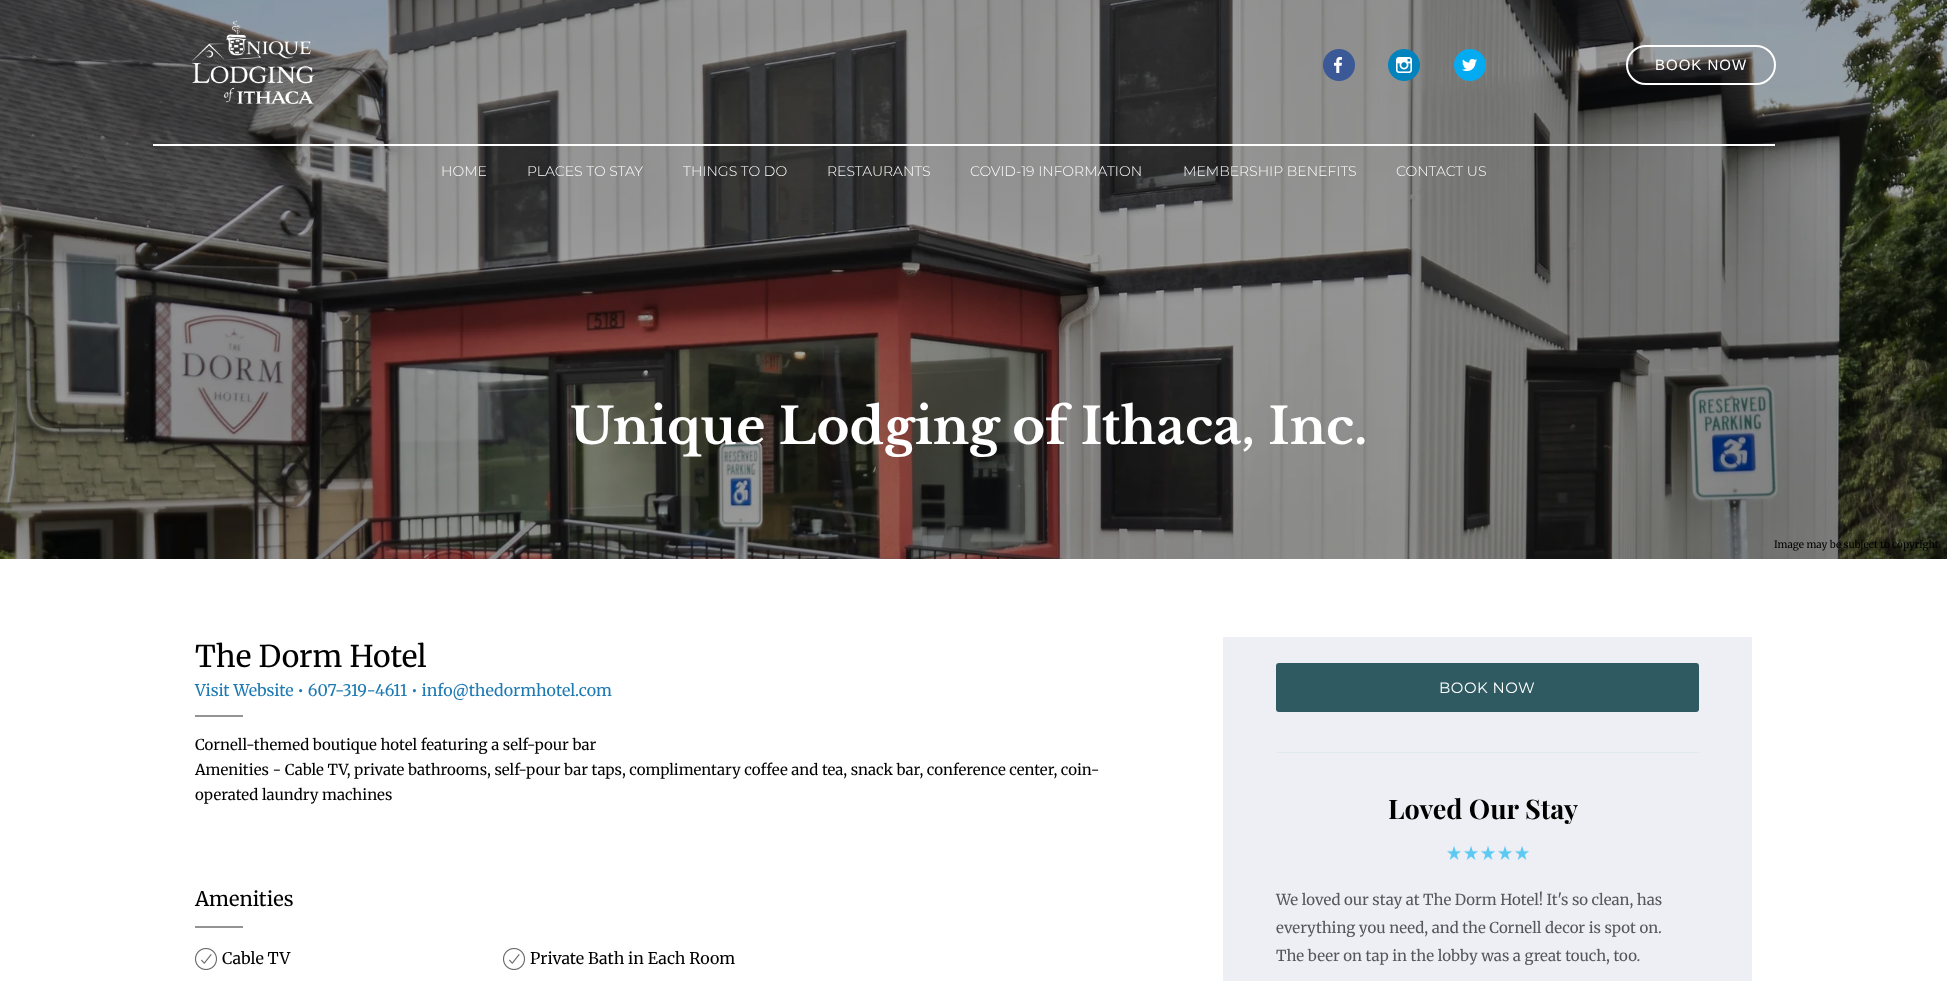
async function draw(canvas) {
	canvas.width = 1947;
	canvas.height = 981;
	const c = canvas.getContext('2d');
	c.miterLimit = 4;
	c.fontKerning = 'normal';
	async function loadImage(src) {
		const img = new Image();
		img.src = src;
		await img.decode();
		return img;
	}

	c.fillStyle = '#fff';
	c.fillRect(0, 0, 1947, 981);
	c.drawImage(await loadImage('img5.png'), 0, 0, 1947, 559);
	c.drawImage(await loadImage('img1.png'), 192, 20, 123, 84);
	c.drawImage(await loadImage('img2.png'), 1323, 49, 32, 32);
	c.drawImage(await loadImage('img3.png'), 1388, 49, 32, 32);
	c.drawImage(await loadImage('img4.png'), 1454, 49, 32, 32);
	c.beginPath();
	c.roundRect(1627, 46, 148, 38, 19);
	c.strokeStyle = '#fff';
	c.lineWidth = 2;
	c.stroke();
	c.letterSpacing = '1px';
	c.font = '15px Liberation Sans';
	c.fillText('BOOK NOW', 1655, 70);
	c.fillRect(153, 144, 1622, 2);
	c.letterSpacing = '0px';
	c.font = '300 14px Montserrat';
	for (const [text, x, y] of [
		['HOME', 441, 176],
		['PLACES TO STAY', 527, 176],
		['THINGS TO DO', 683, 176],
		['RESTAURANTS', 827, 176],
		['COVID-19 INFORMATION', 970, 176],
		['MEMBERSHIP BENEFITS', 1183, 176],
		['CONTACT US', 1396, 176],
	]) {
		c.fillText(text, x, y);
	}
	c.font = 'bold 50px Libre Baskerville';
	c.fillText('Unique Lodging of Ithaca, Inc.', 570, 444);
	c.font = '300 10px Merriweather';
	c.fillStyle = '#000';
	c.fillText('Image may be subject to copyright', 1774, 548);
	c.font = '300 30px Merriweather';
	c.fillText('The Dorm Hotel', 195, 667);
	c.font = '300 16px Merriweather';
	c.fillStyle = '#1e7ab3';
	c.fillText('Visit Website • 607-319-4611 • info@thedormhotel.com', 195, 696);
	c.fillStyle = '#949494';
	c.fillRect(195, 715, 48, 2);
	c.font = '300 15px Merriweather';
	c.fillStyle = '#000';
	for (const [text, x, y] of [
		['Cornell-themed boutique hotel featuring a self-pour bar', 195, 750],
		['Amenities - Cable TV, private bathrooms, self-pour bar taps, complimentary coffee and tea, snack bar, conference center, coin-', 195, 775],
		['operated laundry machines', 195, 800],
	]) {
		c.fillText(text, x, y);
	}
	c.font = '300 20px Merriweather';
	c.fillText('Amenities', 195, 906);
	c.fillStyle = '#949494';
	c.fillRect(195, 926, 48, 2);
	c.drawImage(await loadImage('img6.png'), 195, 948, 22, 22);
	c.font = '300 16px Merriweather';
	c.fillStyle = '#000';
	c.fillText('Cable TV', 222, 964);
	c.drawImage(await loadImage('img6.png'), 503, 948, 22, 22);
	c.fillText('Private Bath in Each Room', 530, 964);
	c.fillStyle = '#eeeff4';
	c.fillRect(1223, 637, 529, 344);
	c.fillStyle = '#2f5a62';
	c.beginPath();
	c.roundRect(1276, 663, 423, 49, 3);
	c.fill();
	c.letterSpacing = '0.5px';
	c.font = '15px Montserrat';
	c.fillStyle = '#fff';
	c.fillText('BOOK NOW', 1439, 693);
	c.fillStyle = '#e0eaec';
	c.fillRect(1276, 752, 423, 1);
	c.letterSpacing = '0px';
	c.font = 'bold 27px Playfair Display';
	c.fillStyle = '#000';
	c.fillText('Loved Our Stay', 1388, 819);
	c.drawImage(await loadImage('img7.png'), 1447, 845, 82, 15);
	c.font = '300 15px Merriweather';
	c.fillStyle = '#55585b';
	for (const [text, x, y] of [
		['We loved our stay at The Dorm Hotel! It\'s so clean, has', 1276, 905],
		['everything you need, and the Cornell decor is spot on.', 1276, 933],
		['The beer on tap in the lobby was a great touch, too.', 1276, 961],
	]) {
		c.fillText(text, x, y);
	}
}

draw(document.querySelector('canvas'));
